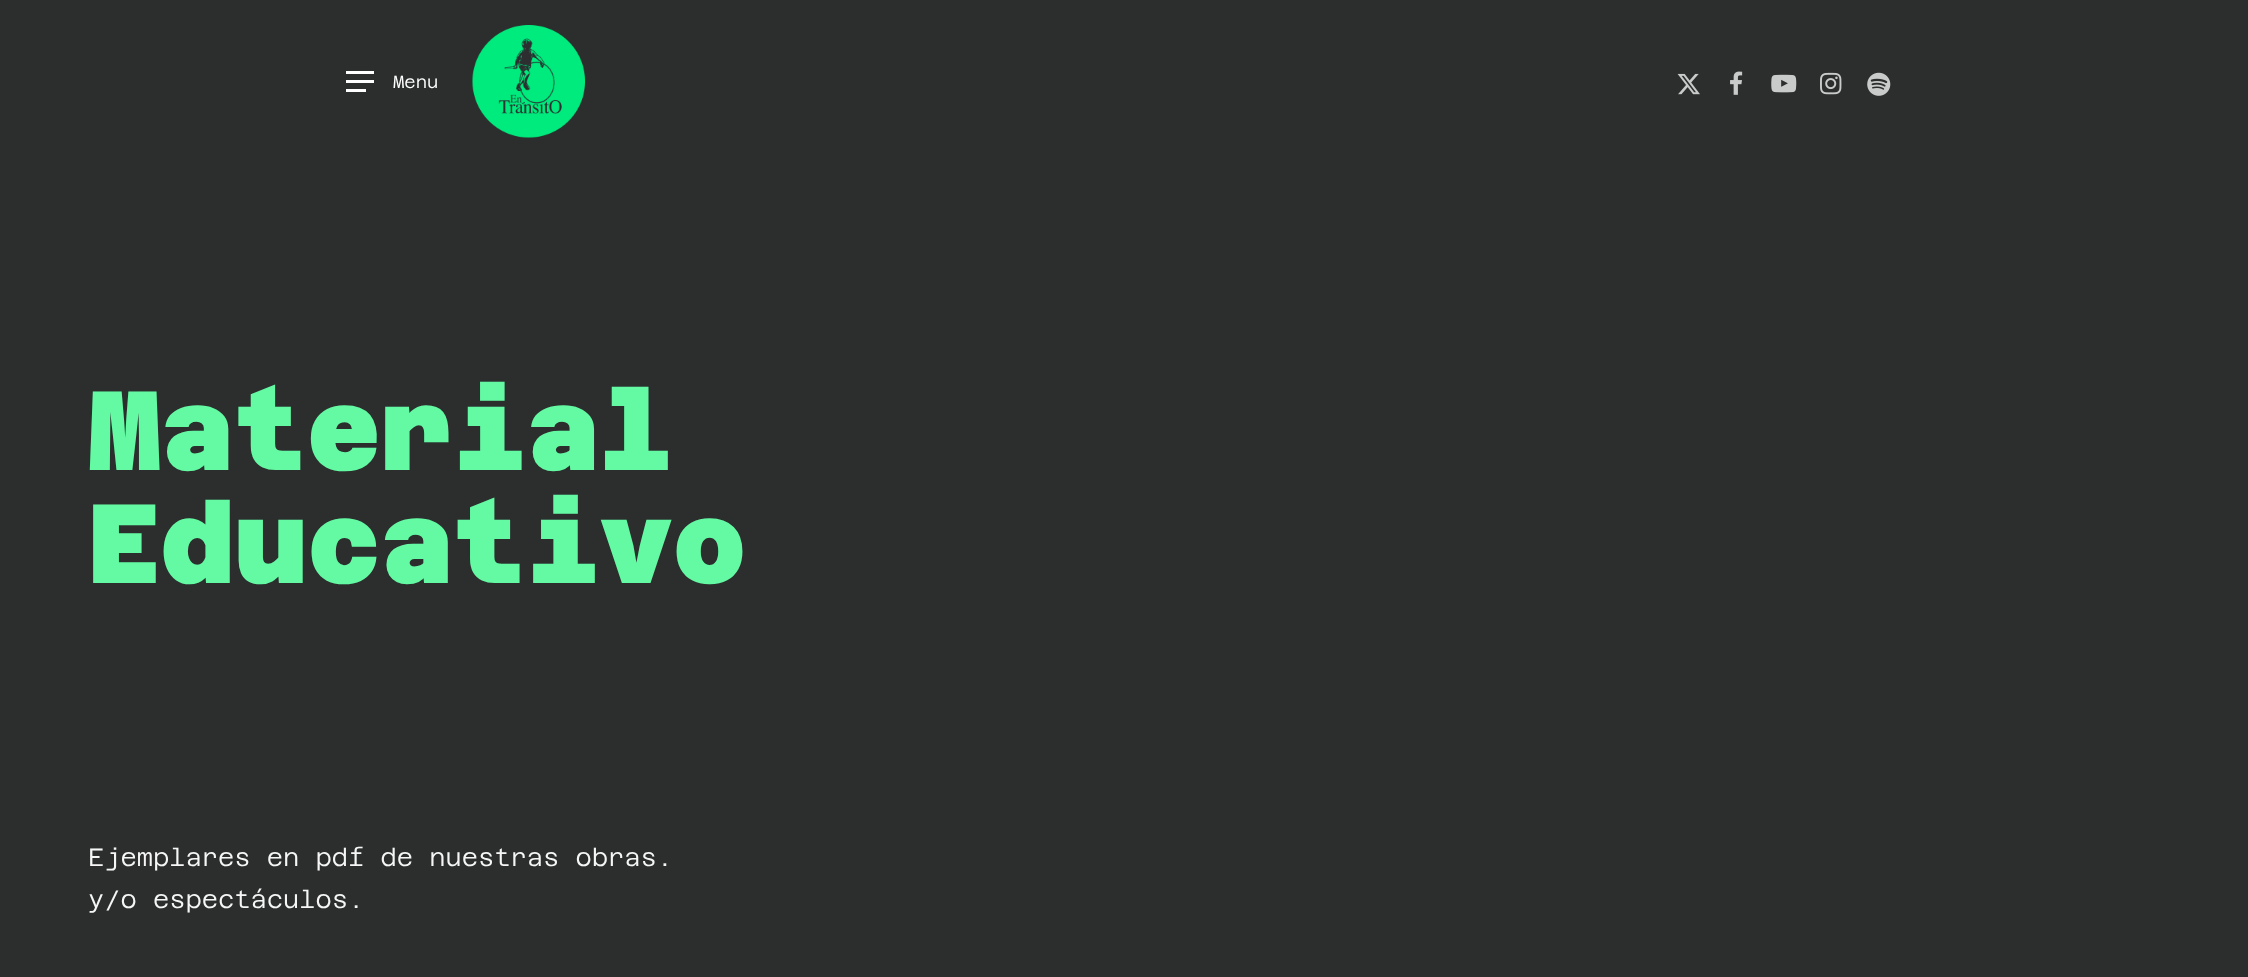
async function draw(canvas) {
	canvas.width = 2248;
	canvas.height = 977;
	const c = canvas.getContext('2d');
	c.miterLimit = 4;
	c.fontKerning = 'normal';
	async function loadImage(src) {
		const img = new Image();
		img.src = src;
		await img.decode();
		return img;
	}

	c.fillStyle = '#2b2e2d';
	c.fillRect(0, 0, 2248, 977);
	for (const [x, y, w, h, color] of [
		[346, 71, 28, 3, '#fff'],
		[346, 89, 20, 3, '#fff'],
		[346, 80, 28, 3, '#fff'],
	]) {
		c.fillStyle = color;
		c.fillRect(x, y, w, h);
	}
	c.font = '300 17.5px Azeret Mono';
	c.fillText('Menu', 393, 88);
	c.drawImage(await loadImage('img1.png'), 472, 25, 113, 113);
	c.drawImage(await loadImage('img2.png'), 1677, 73, 23, 22);
	c.drawImage(await loadImage('img3.png'), 1730, 71, 13, 24);
	c.drawImage(await loadImage('img4.png'), 1771, 74, 26, 19);
	c.drawImage(await loadImage('img5.png'), 1820, 72, 22, 23);
	c.drawImage(await loadImage('img6.png'), 1867, 72, 24, 24);
	c.font = '900 112.5px Azeret Mono';
	c.fillStyle = '#64f9a3';
	c.fillText('Material', 88, 470);
	c.fillText('Educativo', 88, 583);
	c.font = '300 25px Azeret Mono';
	c.fillStyle = '#f6f6f6';
	c.fillText('Ejemplares en pdf de nuestras obras.', 88, 866);
	c.fillText('y/o espectáculos.', 88, 908);
}

draw(document.querySelector('canvas'));
